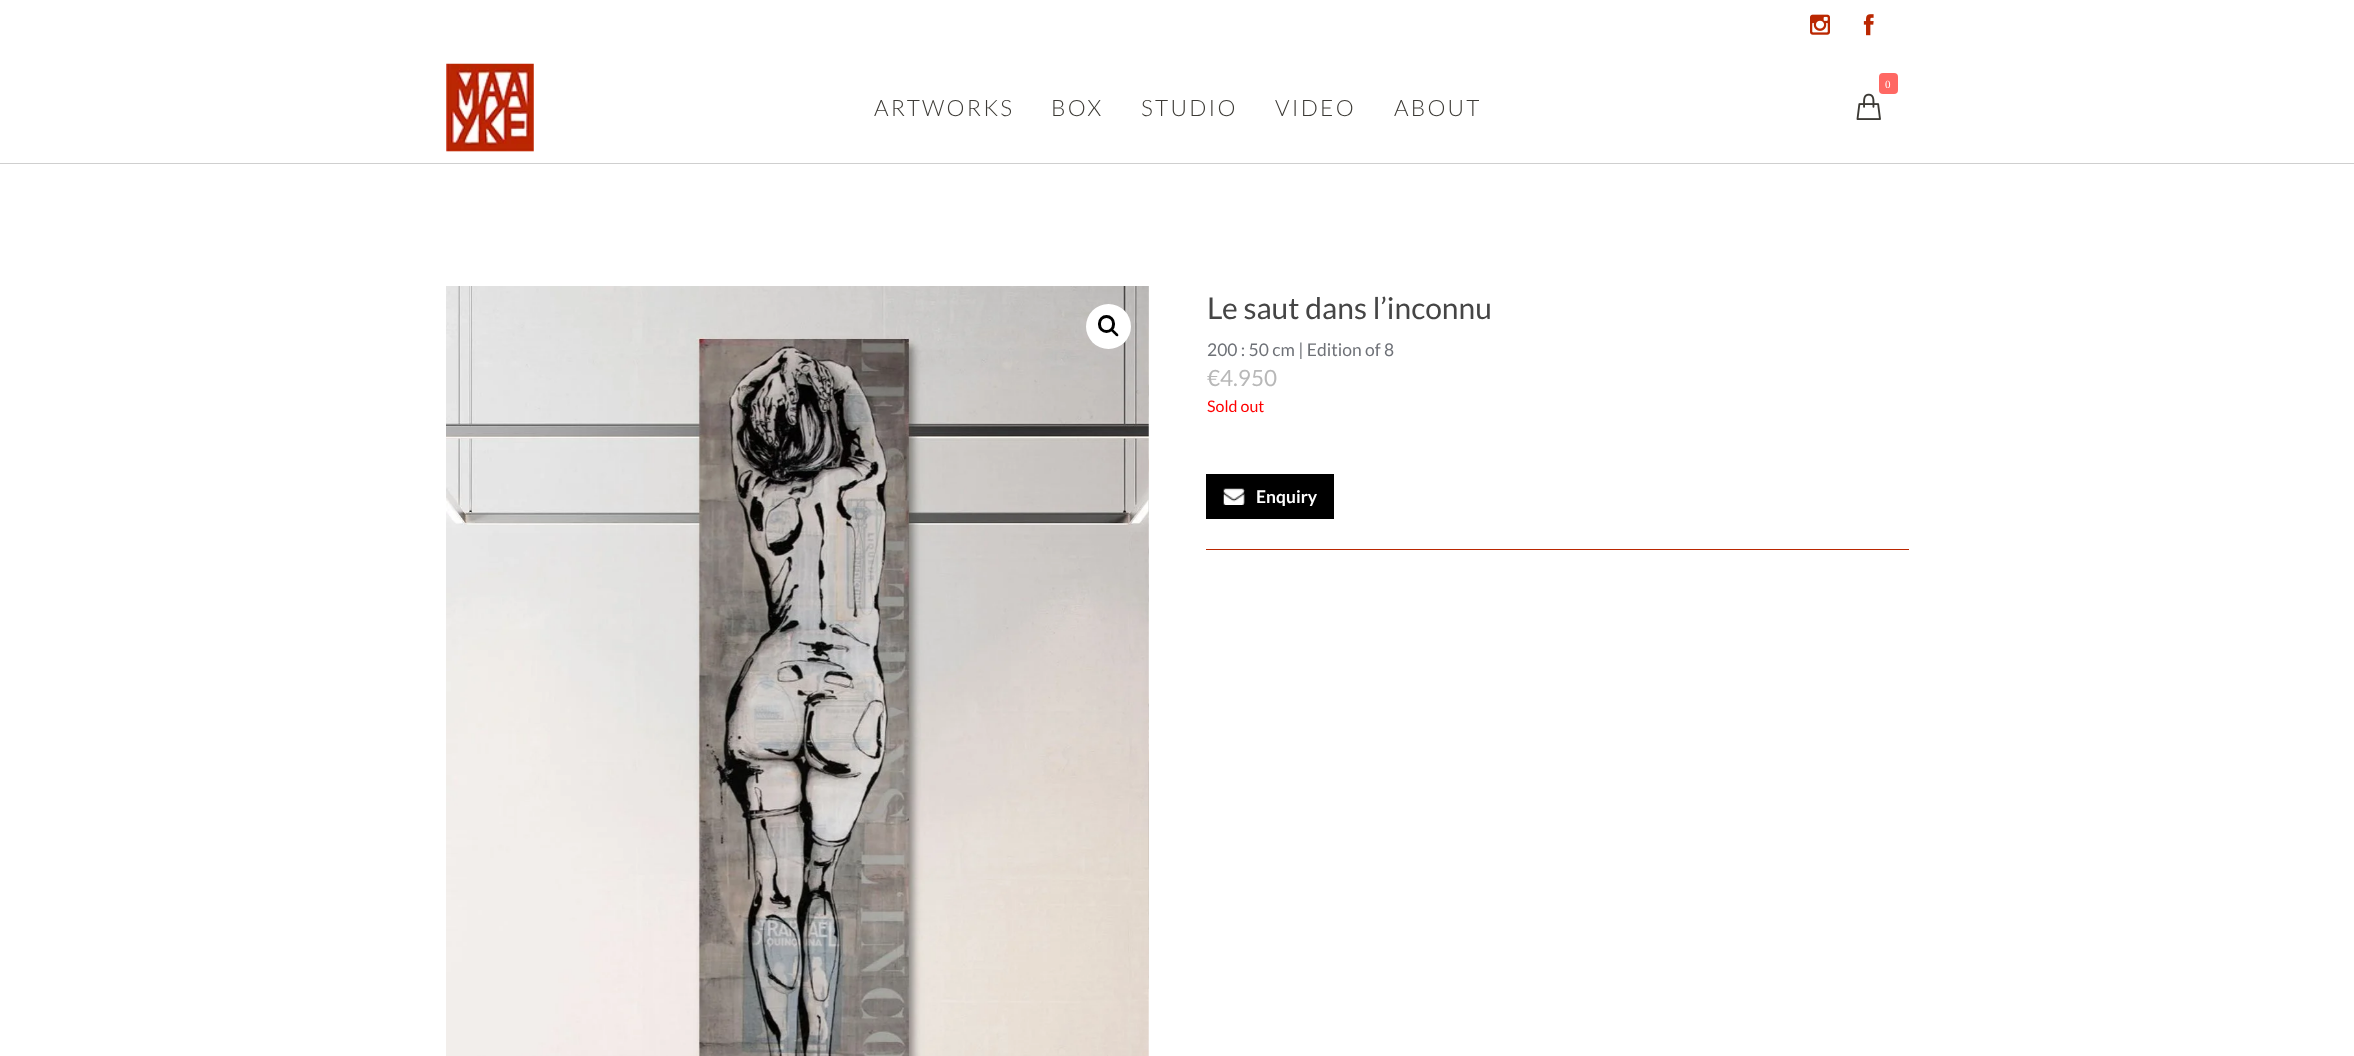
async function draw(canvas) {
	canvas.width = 2354;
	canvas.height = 1056;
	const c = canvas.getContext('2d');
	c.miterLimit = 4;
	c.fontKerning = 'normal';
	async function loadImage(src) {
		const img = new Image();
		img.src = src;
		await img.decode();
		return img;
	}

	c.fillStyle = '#fff';
	c.fillRect(0, 0, 2354, 1056);
	c.drawImage(await loadImage('img1.png'), 1810, 14, 20, 21);
	c.drawImage(await loadImage('img2.png'), 1863, 14, 11, 22);
	c.fillStyle = '#cfcfcf';
	c.fillRect(0, 163, 2354, 1);
	c.drawImage(await loadImage('img3.png'), 446, 63, 88, 89);
	c.drawImage(await loadImage('img4.png'), 1856, 93, 25, 27);
	c.fillStyle = '#ff6863';
	c.beginPath();
	c.roundRect(1879, 73, 19, 21, 4);
	c.fill();
	c.font = '11px Liberation Serif';
	c.fillStyle = '#fff';
	c.fillText('0', 1885, 88);
	c.letterSpacing = '2.25px';
	c.font = '300 22.5px Lato';
	c.fillStyle = '#3c3a35';
	for (const [text, x, y] of [
		['ARTWORKS', 874, 116],
		['BOX', 1051, 116],
		['STUDIO', 1141, 116],
		['VIDEO', 1275, 116],
		['ABOUT', 1394, 116],
	]) {
		c.fillText(text, x, y);
	}
	c.drawImage(await loadImage('img6.png'), 1148, 286, 1, 703);
	c.drawImage(await loadImage('img5.png'), 446, 286, 703, 770);
	c.fillStyle = '#fff';
	c.beginPath();
	c.arc(1108.5, 326.5, 22.5, 0, 2 * Math.PI);
	c.fill();
	c.beginPath();
	c.roundRect(1099.5, 316.5, 14, 15, 7);
	c.strokeStyle = '#000';
	c.lineWidth = 3;
	c.stroke();
	c.fillStyle = '#000';
	c.beginPath();
	c.moveTo(1111, 329);
	c.bezierCurveTo(1112.5, 327.5, 1114.5, 331, 1115.5, 331.5);
	c.bezierCurveTo(1116, 332.5, 1119.5, 334.5, 1118, 336);
	c.bezierCurveTo(1116.5, 337.5, 1114.5, 334, 1113.5, 333.5);
	c.bezierCurveTo(1113, 332.5, 1109.5, 330.5, 1111, 329);
	c.closePath();
	c.fill();
	c.letterSpacing = '0px';
	c.font = '30px Lato';
	c.fillStyle = '#454545';
	c.fillText('Le saut dans l’inconnu', 1207, 319);
	c.font = '17.5px Lato';
	c.fillStyle = '#6e7177';
	c.fillText('200 : 50 cm | Edition of 8', 1207, 356);
	c.font = '22.5px Lato';
	c.fillStyle = '#b8b8b8';
	c.fillText('€4.950', 1207, 386);
	c.font = '16px Lato';
	c.fillStyle = '#f00';
	c.fillText('Sold out', 1207, 412);
	c.fillStyle = '#000';
	c.fillRect(1206, 474, 128, 45);
	c.drawImage(await loadImage('img7.png'), 1223, 488, 22, 17);
	c.font = 'bold 17.5px Lato';
	c.fillStyle = '#fff';
	c.fillText('Enquiry', 1256, 503);
	c.fillStyle = '#ba2701';
	c.fillRect(1206, 549, 703, 1);
}

draw(document.querySelector('canvas'));
